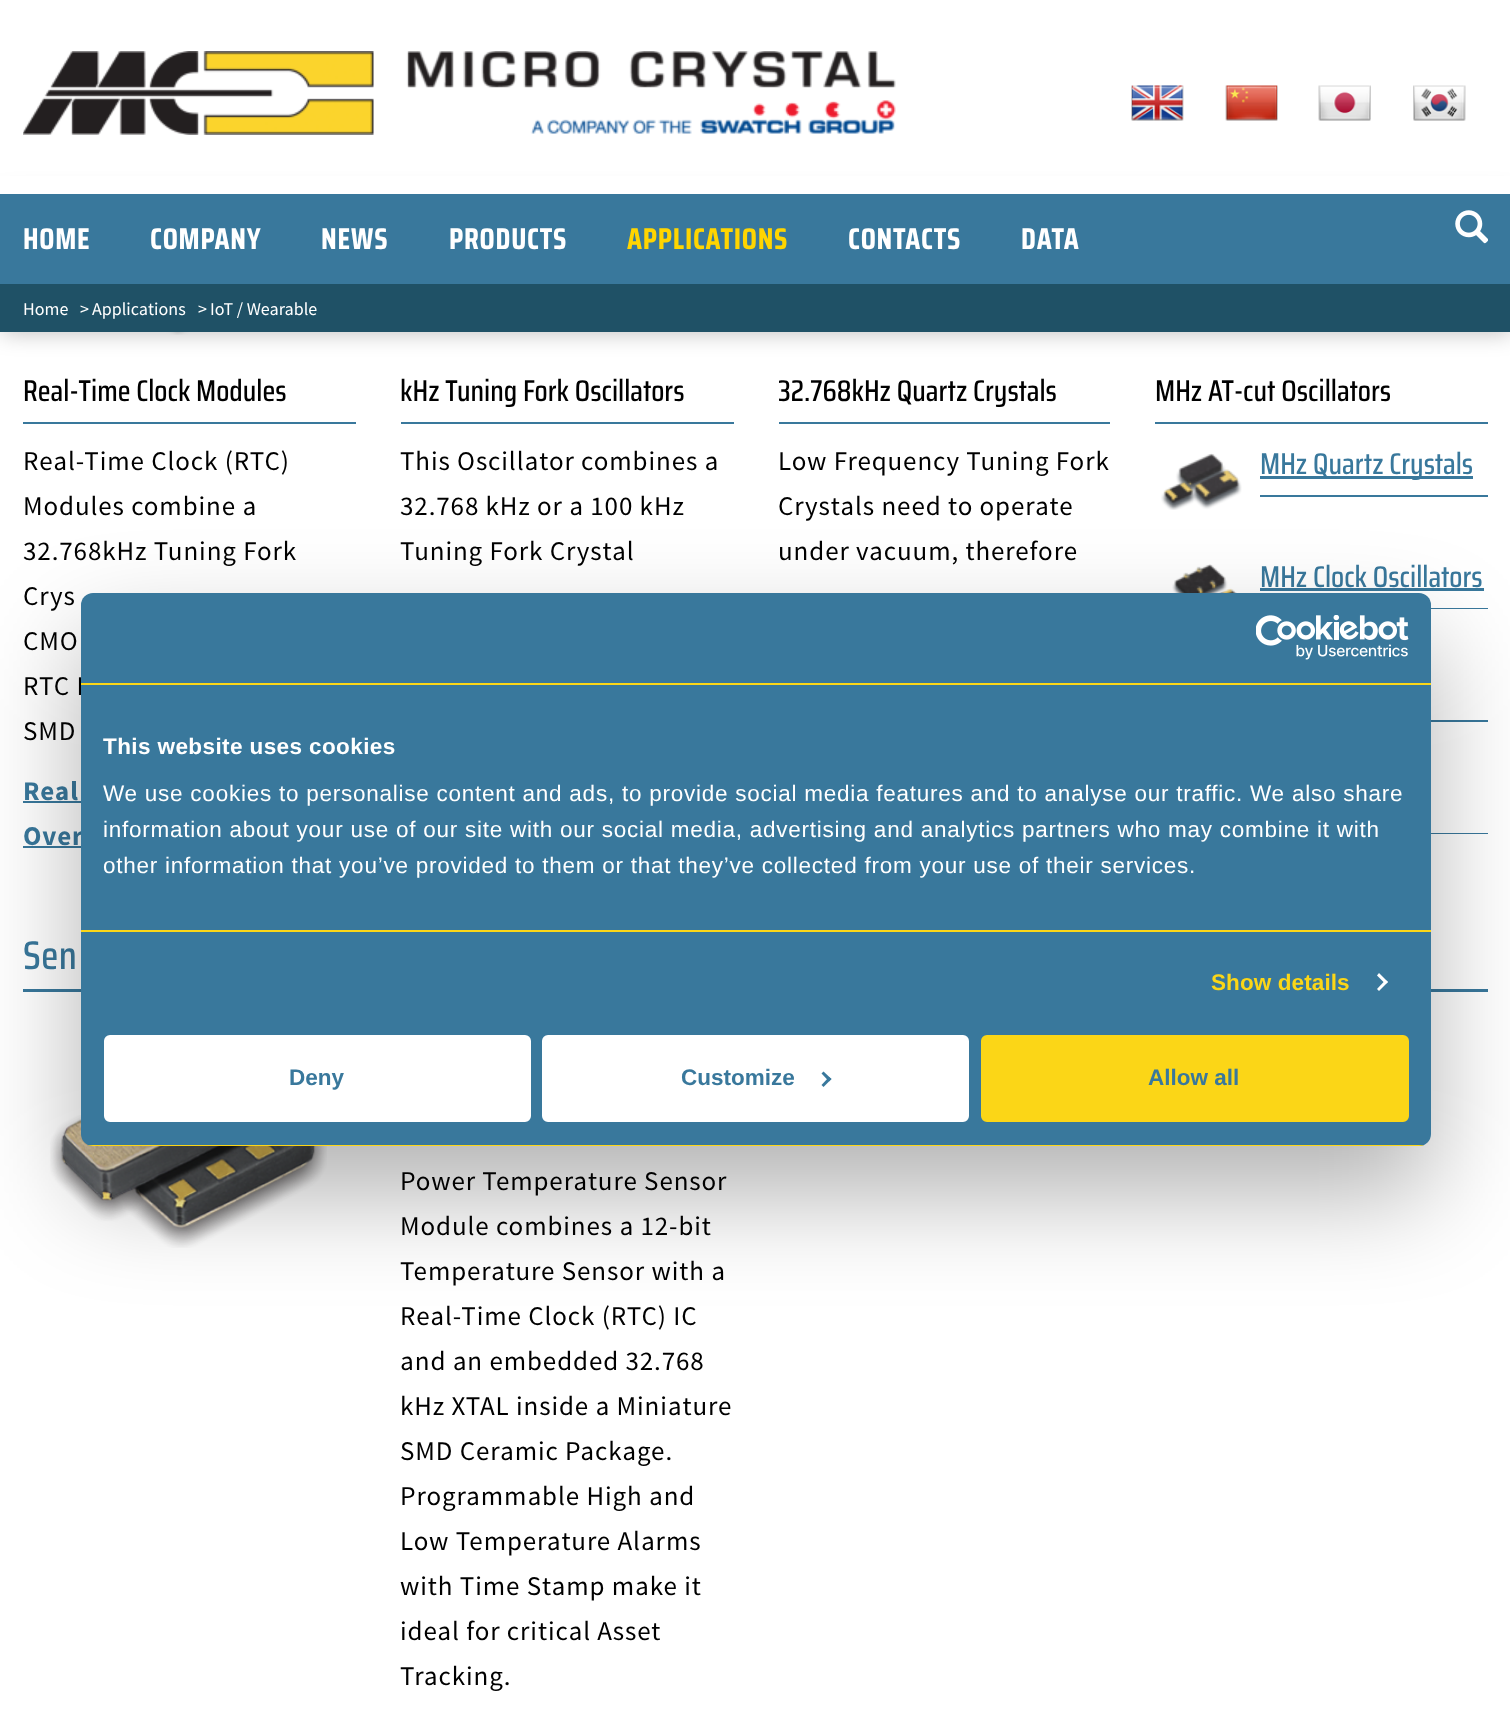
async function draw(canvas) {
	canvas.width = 1510;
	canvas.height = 1736;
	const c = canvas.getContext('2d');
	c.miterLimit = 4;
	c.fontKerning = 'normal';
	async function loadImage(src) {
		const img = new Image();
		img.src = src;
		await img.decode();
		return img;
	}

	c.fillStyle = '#fff';
	c.fillRect(0, 0, 1510, 1736);
	c.drawImage(await loadImage('img7.png'), 22, 332, 334, 3);
	c.fillStyle = '#00000040';
	c.filter = 'blur(11px)';
	c.beginPath();
	c.rect(2, 195, 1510, 138);
	c.fill();
	c.filter = 'none';
	c.fillStyle = '#fff';
	c.fillRect(0, 176, 1510, 18);
	c.drawImage(await loadImage('img1.png'), 23, 51, 873, 84);
	c.drawImage(await loadImage('img2.png'), 1131, 85, 53, 36);
	c.drawImage(await loadImage('img3.png'), 1225, 85, 53, 36);
	c.drawImage(await loadImage('img4.png'), 1318, 85, 53, 36);
	c.drawImage(await loadImage('img5.png'), 1413, 85, 53, 36);
	c.fillStyle = '#39789c';
	c.fillRect(0, 194, 1510, 90);
	c.letterSpacing = '0.75px';
	c.font = 'bold 30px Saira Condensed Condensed';
	c.fillStyle = '#fff';
	for (const [text, x, y] of [
		['HOME', 23, 249],
		['COMPANY', 150, 249],
		['NEWS', 321, 249],
		['PRODUCTS', 449, 249],
	]) {
		c.fillText(text, x, y);
	}
	c.fillStyle = '#ffd500';
	c.fillText('APPLICATIONS', 627, 249);
	c.fillStyle = '#fff';
	c.fillText('CONTACTS', 848, 249);
	c.fillText('DATA', 1021, 249);
	c.drawImage(await loadImage('img6.png'), 1455, 210, 33, 34);
	c.fillStyle = '#1f5166';
	c.fillRect(0, 284, 1510, 48);
	c.letterSpacing = '0px';
	c.font = '18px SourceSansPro';
	c.fillStyle = '#fff';
	for (const [text, x, y] of [
		['Home', 23, 315],
		['>', 80, 315],
		['Applications', 92, 315],
		['>', 198, 315],
		['IoT / Wearable', 210, 315],
	]) {
		c.fillText(text, x, y);
	}
	c.fillStyle = '#39789c';
	c.fillRect(23, 422, 333, 2);
	c.font = '500 30px Saira Condensed';
	c.fillStyle = '#000';
	c.fillText('Real-Time Clock Modules', 23, 401);
	c.letterSpacing = '0.9px';
	c.font = '27px SourceSansPro';
	for (const [text, x, y] of [
		['Real-Time Clock (RTC)', 23, 470],
		['Modules combine a', 23, 515],
		['32.768kHz Tuning Fork', 23, 560],
		['Crys', 23, 605],
		['CMO', 23, 650],
		['RTC I', 23, 695],
		['SMD', 23, 740],
	]) {
		c.fillText(text, x, y);
	}
	c.font = 'bold 27px SourceSansPro';
	c.fillStyle = '#39789c';
	c.fillText('Real', 23, 800);
	c.fillRect(23, 801, 58, 2);
	c.fillText('Over', 23, 845);
	c.fillRect(23, 846, 58, 2);
	c.fillRect(401, 422, 333, 2);
	c.letterSpacing = '0px';
	c.font = '500 30px Saira Condensed';
	c.fillStyle = '#000';
	c.fillText('kHz Tuning Fork Oscillators', 400, 401);
	c.letterSpacing = '0.9px';
	c.font = '27px SourceSansPro';
	for (const [text, x, y] of [
		['This Oscillator combines a', 400, 470],
		['32.768 kHz or a 100 kHz', 400, 515],
		['Tuning Fork Crystal', 400, 560],
	]) {
		c.fillText(text, x, y);
	}
	c.fillStyle = '#39789c';
	c.fillRect(779, 422, 331, 2);
	c.save();
	c.beginPath();
	c.rect(779, 68, 331, 805);
	c.clip();
	c.letterSpacing = '0px';
	c.font = '500 30px Saira Condensed';
	c.fillStyle = '#000';
	c.fillText('32.768kHz Quartz Crystals', 778, 401);
	c.restore();
	c.fillStyle = '#000';
	for (const [text, x, y] of [
		['Low Frequency Tuning Fork', 778, 470],
		['Crystals need to operate', 778, 515],
		['under vacuum, therefore', 778, 560],
	]) {
		c.fillText(text, x, y);
	}
	c.fillStyle = '#39789c';
	c.fillRect(1155, 422, 333, 2);
	c.letterSpacing = '0px';
	c.font = '500 30px Saira Condensed';
	c.fillStyle = '#000';
	c.fillText('MHz AT-cut Oscillators', 1155, 401);
	c.drawImage(await loadImage('img8.png'), 1161, 453, 81, 57);
	c.fillStyle = '#39789c';
	c.fillRect(1260, 495, 228, 2);
	c.fillRect(1260, 476, 213, 3);
	c.fillText('MHz Quartz Crystals', 1260, 474);
	c.drawImage(await loadImage('img9.png'), 1172, 564, 65, 29);
	c.fillRect(1431, 608, 57, 1);
	c.fillText('MHz Clock Oscillators', 1260, 587);
	for (const [x, y, w, h, color] of [
		[1260, 588, 224, 3, '#39789c'],
		[1431, 720, 57, 2, '#39789c'],
		[1431, 833, 57, 1, '#39789c'],
		[23, 989, 1465, 3, '#39789c'],
	]) {
		c.fillStyle = color;
		c.fillRect(x, y, w, h);
	}
	c.letterSpacing = '0.5px';
	c.wordSpacing = '6px';
	c.font = '500 40px Saira Condensed';
	c.fillText('Sen', 23, 969);
	c.drawImage(await loadImage('img10.png'), 50, 1115, 277, 133);
	c.letterSpacing = '0.9px';
	c.wordSpacing = '0px';
	c.font = '27px SourceSansPro';
	c.fillStyle = '#000';
	for (const [text, x, y] of [
		['Power Temperature Sensor', 400, 1190],
		['Module combines a 12-bit', 400, 1235],
		['Temperature Sensor with a', 400, 1280],
		['Real-Time Clock (RTC) IC', 400, 1325],
		['and an embedded 32.768', 400, 1370],
		['kHz XTAL inside a Miniature', 400, 1415],
		['SMD Ceramic Package.', 400, 1460],
		['Programmable High and', 400, 1505],
		['Low Temperature Alarms', 400, 1550],
		['with Time Stamp make it', 400, 1595],
		['ideal for critical Asset', 400, 1640],
		['Tracking.', 400, 1685],
	]) {
		c.fillText(text, x, y);
	}
	c.fillStyle = '#0000004d';
	c.filter = 'blur(51px)';
	c.beginPath();
	c.roundRect(81, 641, 1350, 553, 12);
	c.fill();
	c.filter = 'none';
	c.fillStyle = '#39789c';
	c.beginPath();
	c.roundRect(81, 593, 1350, 553, 12);
	c.fill();
	c.fillStyle = '#fbd617';
	c.fillRect(81, 683, 1350, 2);
	c.drawImage(await loadImage('img11.png'), 1256, 615, 153, 45);
	c.fillRect(81, 930, 1350, 2);
	c.letterSpacing = '0.4px';
	c.font = 'bold 22.5px Liberation Sans';
	c.fillStyle = '#fff';
	c.fillText('This website uses cookies', 103, 754);
	c.letterSpacing = '0.75px';
	c.font = '22.5px Liberation Sans';
	for (const [text, x, y] of [
		['We use cookies to personalise content and ads, to provide social media features and to analyse our traffic. We also share', 103, 801],
		['information about your use of our site with our social media, advertising and analytics partners who may combine it with', 103, 837],
		['other information that you’ve provided to them or that they’ve collected from your use of their services.', 103, 873],
	]) {
		c.fillText(text, x, y);
	}
	c.letterSpacing = '0.1px';
	c.font = 'bold 22.5px Liberation Sans';
	c.fillStyle = '#fbd617';
	c.fillText('Show details', 1211, 990);
	c.fillStyle = '#fff';
	c.beginPath();
	c.moveTo(1379, 973);
	c.lineTo(1388, 982);
	c.lineTo(1385.5, 984);
	c.lineTo(1377, 975.5);
	c.closePath();
	c.fill();
	c.beginPath();
	c.moveTo(1385.5, 980);
	c.lineTo(1388, 982);
	c.lineTo(1379, 991);
	c.lineTo(1377, 989);
	c.closePath();
	c.fill();
	c.save();
	c.beginPath();
	c.roundRect(81, 593, 1350, 553, 12);
	c.clip();
	c.fillStyle = '#fbd617';
	c.fillRect(81, 1145, 1350, 1);
	c.restore();
	c.beginPath();
	c.roundRect(105.5, 1036.5, 424, 84, 4.5);
	c.fill();
	c.strokeStyle = '#fff';
	c.lineWidth = 3;
	c.stroke();
	c.letterSpacing = '0px';
	c.fillStyle = '#39789c';
	c.fillText('Deny', 289, 1085);
	c.fillStyle = '#fff';
	c.beginPath();
	c.roundRect(543.5, 1036.5, 424, 84, 4.5);
	c.fill();
	c.stroke();
	c.fillStyle = '#39789c';
	c.fillText('Customize', 681, 1085);
	c.beginPath();
	c.moveTo(823.5, 1071.5);
	c.lineTo(831.5, 1079);
	c.lineTo(829, 1081.5);
	c.lineTo(821.5, 1073.5);
	c.closePath();
	c.fill();
	c.beginPath();
	c.moveTo(829, 1077);
	c.lineTo(831.5, 1079);
	c.lineTo(823.5, 1087);
	c.lineTo(821.5, 1085);
	c.closePath();
	c.fill();
	c.fillStyle = '#fbd617';
	c.beginPath();
	c.roundRect(982.5, 1036.5, 425, 84, 4.5);
	c.fill();
	c.strokeStyle = '#fbd617';
	c.stroke();
	c.fillStyle = '#39789c';
	c.fillText('Allow all', 1148, 1085);
}

draw(document.querySelector('canvas'));
